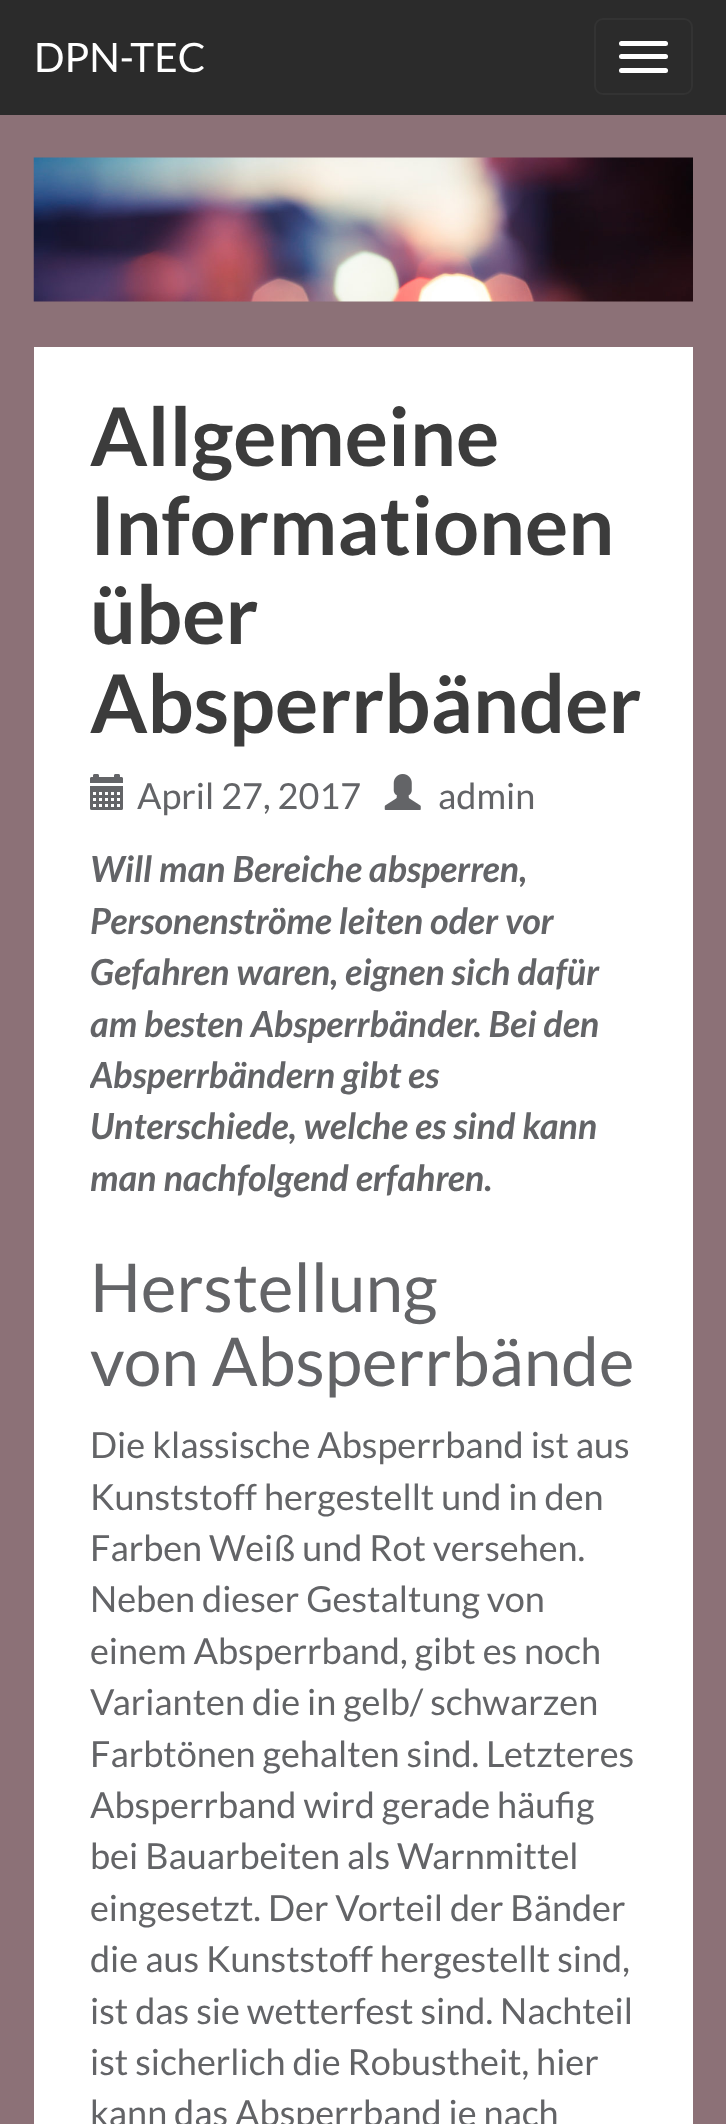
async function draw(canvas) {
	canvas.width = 726;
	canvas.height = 2124;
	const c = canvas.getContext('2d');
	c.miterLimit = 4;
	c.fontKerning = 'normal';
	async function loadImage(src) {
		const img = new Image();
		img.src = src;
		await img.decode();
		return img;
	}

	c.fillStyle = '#8c7177';
	c.fillRect(0, 0, 726, 2124);
	c.fillStyle = '#2b2b2b';
	c.fillRect(0, 0, 726, 115);
	c.font = '40.5px Lato';
	c.fillStyle = '#fff';
	c.fillText('DPN-TEC', 34, 72);
	c.beginPath();
	c.roundRect(595, 19, 97, 75, 8);
	c.strokeStyle = '#333';
	c.lineWidth = 2;
	c.stroke();
	c.beginPath();
	c.roundRect(619, 41, 49, 5, 2.5);
	c.fill();
	c.beginPath();
	c.roundRect(619, 54, 49, 5, 2.5);
	c.fill();
	c.beginPath();
	c.roundRect(619, 68, 49, 5, 2.5);
	c.fill();
	c.drawImage(await loadImage('img1.png'), 33, 157, 660, 145);
	c.fillRect(34, 347, 659, 1777);
	c.font = 'bold 81px Lato';
	c.fillStyle = '#3c3c3c';
	for (const [text, x, y] of [
		['Allgemeine', 90, 466],
		['Informationen', 90, 555],
		['über', 90, 644],
		['Absperrbänder', 90, 733],
	]) {
		c.fillText(text, x, y);
	}
	c.drawImage(await loadImage('img2.png'), 90, 774, 33, 36);
	c.font = '36px Lato';
	c.fillStyle = '#636467';
	c.fillText('April 27, 2017', 137, 809);
	c.drawImage(await loadImage('img3.png'), 384, 774, 37, 36);
	c.fillText('admin', 438, 809);
	c.font = 'italic bold 36px Lato';
	for (const [text, x, y] of [
		['Will man Bereiche absperren,', 90, 882],
		['Personenströme leiten oder vor', 90, 934],
		['Gefahren waren, eignen sich dafür', 90, 985],
		['am besten Absperrbänder. Bei den', 90, 1037],
	]) {
		c.fillText(text, x, y);
	}
	c.save();
	c.beginPath();
	c.rect(90, 844, 547, 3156);
	c.clip();
	c.fillText('Absperrbändern gibt es', 90, 1088);
	c.restore();
	c.fillText('Unterschiede, welche es sind kann', 90, 1139);
	c.fillText('man nachfolgend erfahren.', 90, 1191);
	c.font = '67.5px Lato';
	c.fillText('Herstellung', 90, 1312);
	c.fillText('von Absperrbände', 90, 1386);
	c.font = '36px Lato';
	for (const [text, x, y] of [
		['Die klassische Absperrband ist aus', 90, 1458],
		['Kunststoff hergestellt und in den', 90, 1510],
		['Farben Weiß und Rot versehen.', 90, 1561],
		['Neben dieser Gestaltung von', 90, 1612],
		['einem Absperrband, gibt es noch', 90, 1664],
		['Varianten die in gelb/ schwarzen', 90, 1715],
		['Farbtönen gehalten sind. Letzteres', 90, 1767],
		['Absperrband wird gerade häufig', 90, 1818],
		['bei Bauarbeiten als Warnmittel', 90, 1869],
		['eingesetzt. Der Vorteil der Bänder', 90, 1921],
		['die aus Kunststoff hergestellt sind,', 90, 1972],
		['ist das sie wetterfest sind. Nachteil', 90, 2024],
		['ist sicherlich die Robustheit, hier', 90, 2075],
		['kann das Absperrband je nach', 90, 2126],
	]) {
		c.fillText(text, x, y);
	}
}

draw(document.querySelector('canvas'));
